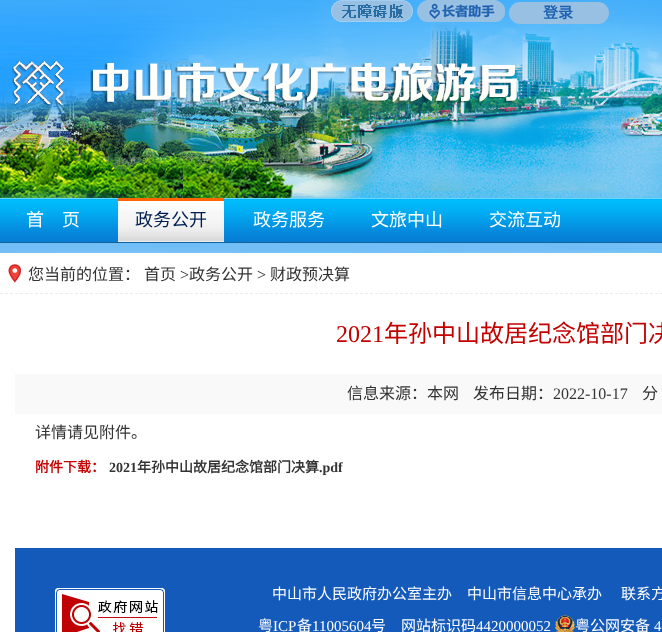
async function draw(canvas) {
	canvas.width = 662;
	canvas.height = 632;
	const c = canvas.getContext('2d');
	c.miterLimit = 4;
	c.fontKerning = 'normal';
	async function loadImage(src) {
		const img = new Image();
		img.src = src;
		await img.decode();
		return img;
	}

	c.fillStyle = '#fff';
	c.fillRect(0, 0, 662, 632);
	c.drawImage(await loadImage('img1.png'), 0, 0, 662, 253);
	c.drawImage(await loadImage('img2.png'), 331, 0, 82, 22);
	c.drawImage(await loadImage('img3.png'), 417, 0, 88, 22);
	c.fillStyle = '#98c0e3';
	c.beginPath();
	c.roundRect(509, 2, 100, 22, 11);
	c.fill();
	c.font = 'bold 15px Noto Sans CJK SC';
	c.fillStyle = '#1d60af';
	c.fillText('登录', 543, 18);
	c.drawImage(await loadImage('img4.png'), 12, 61, 505, 46);
	c.drawImage(await loadImage('img5.png'), 0, 198, 662, 45);
	c.font = '18px Noto Sans CJK SC';
	c.fillStyle = '#fff';
	c.fillText('首　页', 26, 226);
	c.drawImage(await loadImage('img6.png'), 118, 198, 106, 44);
	c.fillStyle = '#001f50';
	c.fillText('政务公开', 135, 226);
	c.fillStyle = '#fff';
	for (const [text, x, y] of [
		['政务服务', 253, 226],
		['文旅中山', 371, 226],
		['交流互动', 489, 226],
	]) {
		c.fillText(text, x, y);
	}
	c.drawImage(await loadImage('img7.png'), 8, 264, 13, 19);
	c.beginPath();
	c.moveTo(0, 293.5);
	c.lineTo(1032, 293.5);
	c.strokeStyle = '#ececec';
	c.setLineDash([3, 2]);
	c.stroke();
	c.font = '16px Noto Sans CJK SC';
	c.fillStyle = '#333';
	c.fillText('您当前的位置：', 28, 280);
	c.fillText('首页', 144, 280);
	c.font = '16px Liberation Serif';
	c.fillText('>', 180, 280);
	c.font = '16px Noto Sans CJK SC';
	c.fillText('政务公开', 189, 280);
	c.font = '16px Liberation Serif';
	c.fillText('>', 257, 280);
	c.font = '16px Noto Sans CJK SC';
	c.fillText('财政预决算', 270, 280);
	c.font = '24px Liberation Serif';
	c.fillStyle = '#c40000';
	c.fillText('2021', 336, 342);
	c.font = '24px Noto Sans CJK SC';
	c.fillText('年孙中山故居纪念馆部门决', 384, 342);
	c.fillStyle = '#f9f9f9';
	c.fillRect(15, 374, 647, 40);
	c.font = '16px Noto Sans CJK SC';
	c.fillStyle = '#333';
	c.fillText('信息来源：本网', 347, 399);
	c.fillText('发布日期：', 473, 399);
	c.font = '16px Liberation Serif';
	c.fillText('2022-10-17', 553, 399);
	c.font = '16px Noto Sans CJK SC';
	c.fillText('分', 642, 399);
	c.fillText('详情请见附件。', 35, 438);
	c.font = 'bold 14px Noto Sans CJK SC';
	c.fillStyle = '#c40000';
	c.fillText('附件下载：', 35, 472);
	c.font = 'bold 14px Liberation Serif';
	c.fillStyle = '#333';
	c.fillText('2021', 109, 472);
	c.font = 'bold 14px Noto Sans CJK SC';
	c.fillText('年孙中山故居纪念馆部门决算', 137, 472);
	c.font = 'bold 14px Liberation Serif';
	c.fillText('.pdf', 319, 472);
	c.fillStyle = '#145aba';
	c.fillRect(15, 548, 647, 84);
	c.drawImage(await loadImage('img8.png'), 55, 588, 110, 44);
	c.font = '15px Noto Sans CJK SC';
	c.fillStyle = '#fff';
	for (const [text, x, y] of [
		['中山市人民政府办公室主办　中山市信息中心承办', 272, 599],
		['联系方', 621, 599],
		['粤', 258, 631],
	]) {
		c.fillText(text, x, y);
	}
	c.font = '15px Liberation Serif';
	c.fillText('ICP', 273, 631);
	c.font = '15px Noto Sans CJK SC';
	c.fillText('备', 297, 631);
	c.font = '15px Liberation Serif';
	c.fillText('11005604', 312, 631);
	c.font = '15px Noto Sans CJK SC';
	c.fillText('号', 371, 631);
	c.fillText('网站标识码', 401, 631);
	c.font = '15px Liberation Serif';
	c.fillText('4420000052', 476, 631);
	c.drawImage(await loadImage('img9.png'), 555, 615, 20, 17);
	c.font = '15px Noto Sans CJK SC';
	c.fillText('粤公网安备', 575, 631);
	c.font = '15px Liberation Serif';
	c.fillText('4', 654, 631);
}

draw(document.querySelector('canvas'));
